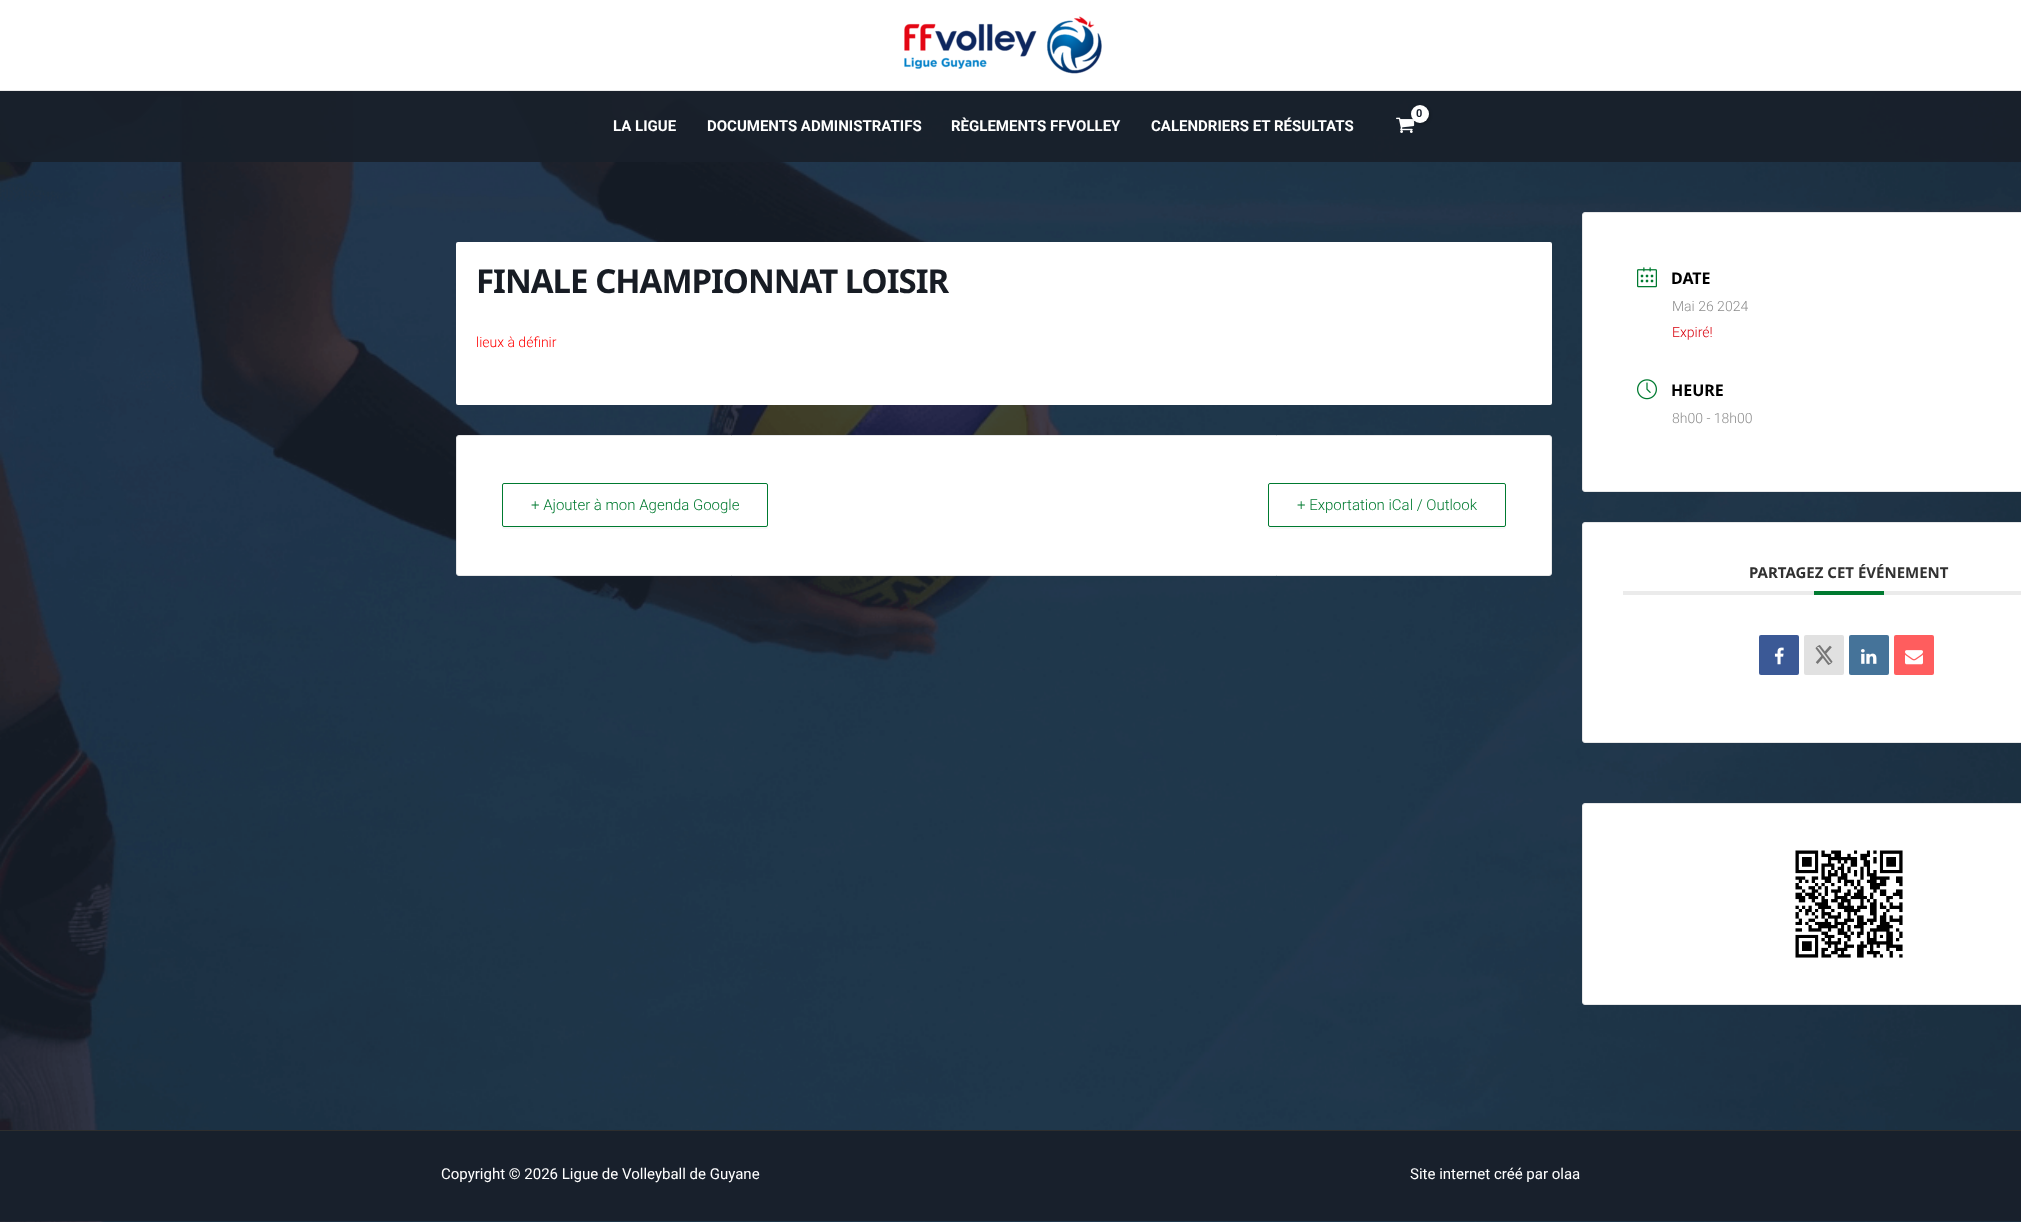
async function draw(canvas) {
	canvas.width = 2021;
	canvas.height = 1222;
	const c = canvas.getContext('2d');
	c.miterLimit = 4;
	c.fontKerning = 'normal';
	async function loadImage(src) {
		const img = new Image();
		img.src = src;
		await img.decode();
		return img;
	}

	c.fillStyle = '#fff';
	c.fillRect(0, 0, 2021, 1222);
	c.drawImage(await loadImage('img1.png'), 0, 91, 2021, 1131);
	c.fillStyle = '#eaeaea';
	c.fillRect(0, 90, 2021, 1);
	c.drawImage(await loadImage('img2.png'), 904, 16, 198, 58);
	c.fillStyle = '#18202bf0';
	c.fillRect(0, 91, 2021, 71);
	c.drawImage(await loadImage('img3.png'), 1396, 117, 19, 16);
	c.fillStyle = '#0000004d';
	c.filter = 'blur(1.5px)';
	c.beginPath();
	c.roundRect(1412, 106, 18, 18, 9);
	c.fill();
	c.filter = 'none';
	c.fillStyle = '#fff';
	c.beginPath();
	c.arc(1420, 114, 9, 0, 2 * Math.PI);
	c.fill();
	c.font = 'bold 11px Roboto';
	c.fillStyle = '#18202c';
	c.fillText('0', 1416, 117);
	c.font = 'bold 15px Roboto';
	c.fillStyle = '#fff';
	for (const [text, x, y] of [
		['LA LIGUE', 613, 131],
		['DOCUMENTS ADMINISTRATIFS', 707, 131],
		['RÈGLEMENTS FFVOLLEY', 951, 131],
		['CALENDRIERS ET RÉSULTATS', 1151, 131],
	]) {
		c.fillText(text, x, y);
	}
	c.beginPath();
	c.roundRect(456, 242, 1096, 163, 2);
	c.fill();
	c.letterSpacing = '-1px';
	c.font = 'bold 33px Noto Sans';
	c.fillStyle = '#171c24';
	c.fillText('FINALE CHAMPIONNAT LOISIR', 476, 293);
	c.letterSpacing = '0px';
	c.font = '300 14px Roboto';
	c.fillStyle = '#f00';
	c.fillText('lieux à définir', 476, 347);
	c.fillStyle = '#fff';
	c.beginPath();
	c.roundRect(456.5, 435.5, 1095, 140, 2.5);
	c.fill();
	c.strokeStyle = '#e6e7e8';
	c.stroke();
	c.fillStyle = '#f7f7f7';
	c.beginPath();
	c.moveTo(502, 525);
	c.lineTo(502, 527);
	c.bezierCurveTo(502, 528, 503, 529, 504, 529);
	c.lineTo(766, 529);
	c.bezierCurveTo(767, 529, 768, 528, 768, 527);
	c.lineTo(768, 525);
	c.bezierCurveTo(768, 526, 767, 527, 766, 527);
	c.lineTo(504, 527);
	c.bezierCurveTo(503, 527, 502, 526, 502, 525);
	c.closePath();
	c.fill();
	c.beginPath();
	c.roundRect(502.5, 483.5, 265, 43, 1.5);
	c.strokeStyle = '#007a30';
	c.stroke();
	c.font = '300 15px Roboto';
	c.fillStyle = '#007a30';
	c.fillText('+ Ajouter à mon Agenda Google', 531, 510);
	c.fillStyle = '#f7f7f7';
	c.beginPath();
	c.moveTo(1268, 525);
	c.bezierCurveTo(1268, 527, 1268, 529, 1270, 529);
	c.lineTo(1504, 529);
	c.bezierCurveTo(1506, 529, 1506, 527, 1506, 525);
	c.bezierCurveTo(1506, 526, 1505, 527, 1504, 527);
	c.lineTo(1270, 527);
	c.bezierCurveTo(1269, 527, 1268, 526, 1268, 525);
	c.closePath();
	c.fill();
	c.beginPath();
	c.roundRect(1268.5, 483.5, 237, 43, 1.5);
	c.stroke();
	c.fillStyle = '#007a30';
	c.fillText('+ Exportation iCal / Outlook', 1297, 510);
	c.fillStyle = '#fff';
	c.beginPath();
	c.roundRect(1582.5, 212.5, 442, 279, 2.5);
	c.fill();
	c.strokeStyle = '#e6e7e8';
	c.stroke();
	c.drawImage(await loadImage('img4.png'), 1637, 267, 20, 21);
	c.font = 'bold 16px Noto Sans';
	c.fillStyle = '#000';
	c.fillText('DATE', 1671, 284);
	c.font = '300 14px Roboto';
	c.fillStyle = '#8d8d8d';
	c.fillText('Mai 26 2024', 1672, 311);
	c.fillStyle = '#d8000c';
	c.fillText('Expiré!', 1672, 337);
	c.drawImage(await loadImage('img5.png'), 1637, 379, 20, 21);
	c.font = 'bold 16px Noto Sans';
	c.fillStyle = '#000';
	c.fillText('HEURE', 1671, 396);
	c.font = '300 14px Roboto';
	c.fillStyle = '#8d8d8d';
	c.fillText('8h00 - 18h00', 1672, 423);
	c.fillStyle = '#fff';
	c.beginPath();
	c.roundRect(1582.5, 522.5, 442, 220, 2.5);
	c.fill();
	c.stroke();
	c.fillStyle = '#ebebeb';
	c.fillRect(1623, 591, 398, 4);
	c.font = 'bold 15px Noto Sans';
	c.fillStyle = '#313131';
	c.fillText('PARTAGEZ CET ÉVÉNEMENT', 1749, 578);
	c.fillStyle = '#007a30';
	c.fillRect(1814, 591, 70, 4);
	c.fillStyle = '#3b5996';
	c.beginPath();
	c.roundRect(1759, 635, 40, 40, 2);
	c.fill();
	c.drawImage(await loadImage('img6.png'), 1774, 647, 10, 18);
	c.fillStyle = '#e1e1e1';
	c.beginPath();
	c.roundRect(1804, 635, 40, 40, 2);
	c.fill();
	c.drawImage(await loadImage('img7.png'), 1815, 645, 18, 20);
	c.fillStyle = '#457399';
	c.beginPath();
	c.roundRect(1849, 635, 40, 40, 2);
	c.fill();
	c.drawImage(await loadImage('img8.png'), 1861, 649, 16, 15);
	c.fillStyle = '#ff5d5e';
	c.beginPath();
	c.roundRect(1894, 635, 40, 40, 2);
	c.fill();
	c.drawImage(await loadImage('img9.png'), 1905, 650, 18, 15);
	c.fillStyle = '#fff';
	c.beginPath();
	c.roundRect(1582.5, 803.5, 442, 201, 2.5);
	c.fill();
	c.stroke();
	c.drawImage(await loadImage('img10.png'), 1795, 850, 108, 108);
	c.fillStyle = '#18202c';
	c.fillRect(0, 1131, 2021, 90);
	c.fillStyle = '#2e2e2e';
	c.fillRect(0, 1130, 2021, 1);
	c.font = '15px Roboto';
	c.fillStyle = '#fff';
	c.fillText('Copyright © 2026 Ligue de Volleyball de Guyane', 441, 1179);
	c.fillText('Site internet créé par olaa', 1410, 1179);
}

draw(document.querySelector('canvas'));
